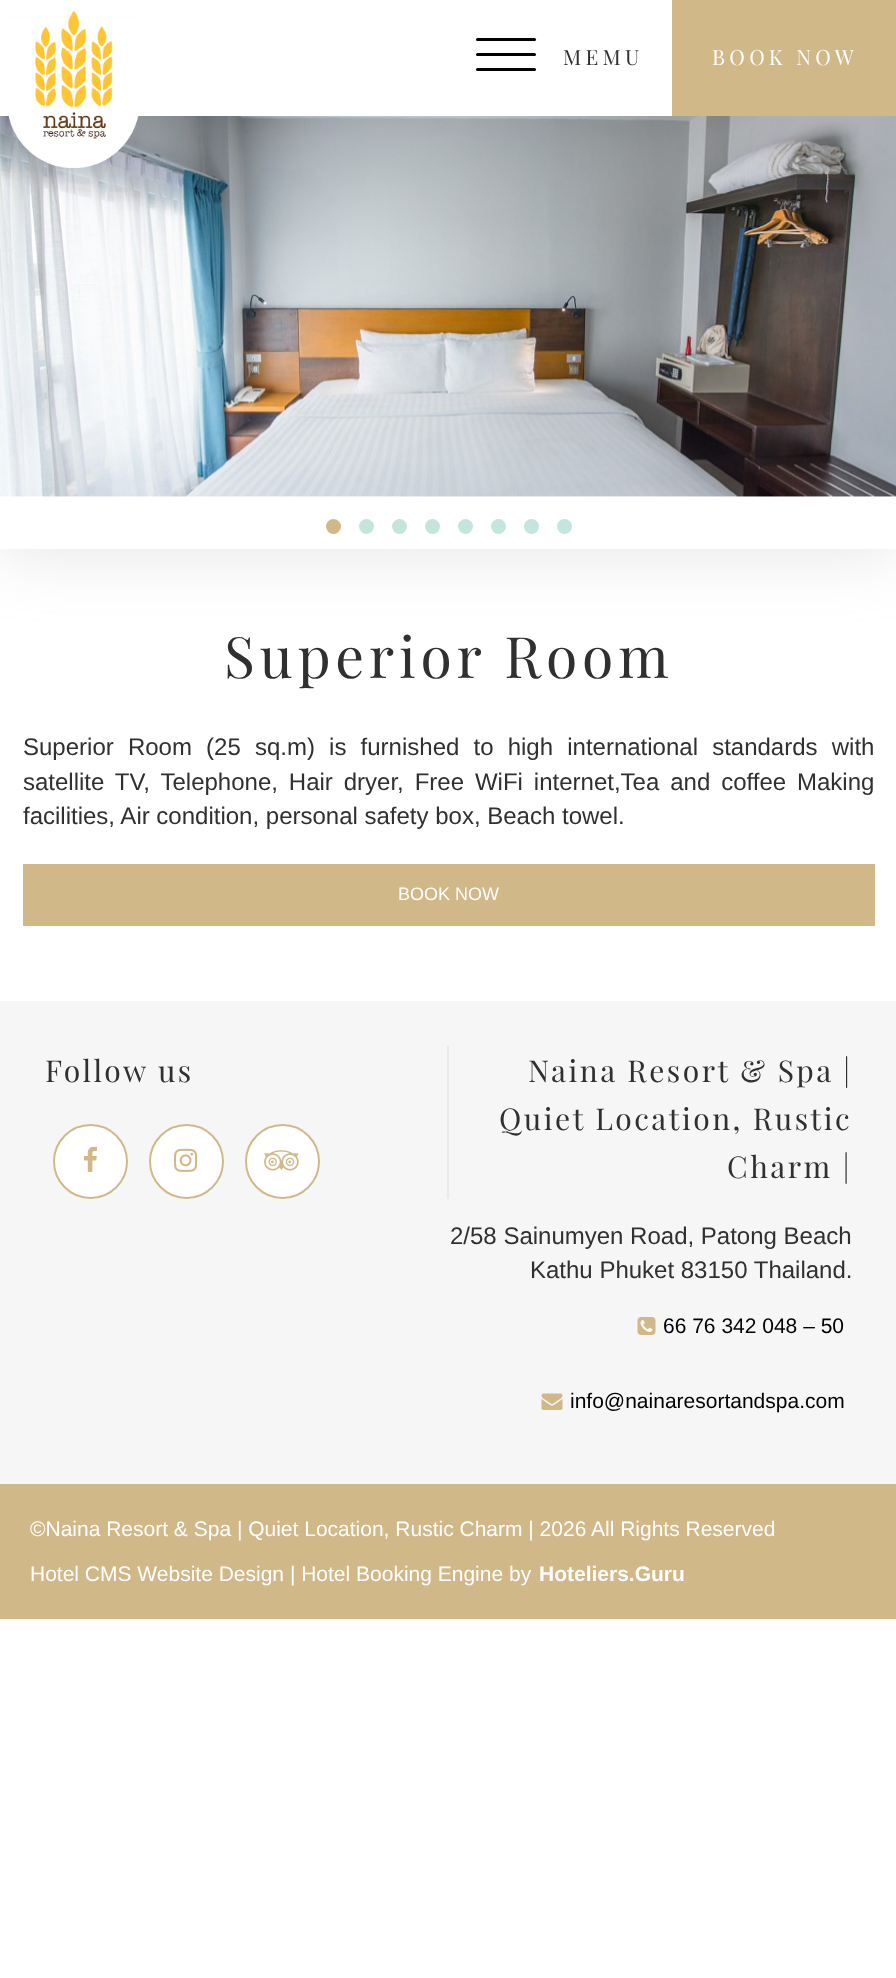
async function draw(canvas) {
	canvas.width = 896;
	canvas.height = 1978;
	const c = canvas.getContext('2d');
	c.miterLimit = 4;
	c.fontKerning = 'normal';
	async function loadImage(src) {
		const img = new Image();
		img.src = src;
		await img.decode();
		return img;
	}

	c.fillStyle = '#fff';
	c.fillRect(0, 0, 896, 1978);
	c.fillStyle = '#b3b3b34d';
	c.filter = 'blur(30px)';
	c.beginPath();
	c.rect(0, 8, 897, 549);
	c.fill();
	c.filter = 'none';
	c.fillStyle = '#fff';
	c.fillRect(0, 496, 896, 53);
	c.drawImage(await loadImage('img1.png'), 0, 116, 896, 381);
	c.fillStyle = '#d1b888';
	c.beginPath();
	c.arc(333.5, 526.5, 7.5, 0, 2 * Math.PI);
	c.fill();
	c.fillStyle = '#c4e4de';
	c.beginPath();
	c.arc(366.5, 526.5, 7.5, 0, 2 * Math.PI);
	c.fill();
	c.beginPath();
	c.arc(399.5, 526.5, 7.5, 0, 2 * Math.PI);
	c.fill();
	c.beginPath();
	c.arc(432.5, 526.5, 7.5, 0, 2 * Math.PI);
	c.fill();
	c.beginPath();
	c.arc(465.5, 526.5, 7.5, 0, 2 * Math.PI);
	c.fill();
	c.beginPath();
	c.arc(498.5, 526.5, 7.5, 0, 2 * Math.PI);
	c.fill();
	c.beginPath();
	c.arc(531.5, 526.5, 7.5, 0, 2 * Math.PI);
	c.fill();
	c.beginPath();
	c.arc(564.5, 526.5, 7.5, 0, 2 * Math.PI);
	c.fill();
	c.fillStyle = '#fff';
	c.fillRect(0, 0, 672, 116);
	c.drawImage(await loadImage('img2.png'), 8, 10, 131, 158);
	c.fillStyle = '#000';
	c.beginPath();
	c.roundRect(476, 38, 60, 3, 1.5);
	c.fill();
	c.beginPath();
	c.roundRect(476, 53, 60, 3, 1.5);
	c.fill();
	c.beginPath();
	c.roundRect(476, 68, 60, 3, 1.5);
	c.fill();
	c.letterSpacing = '4.25px';
	c.font = '21px Playfair Display';
	c.fillStyle = '#303030';
	c.fillText('MEMU', 563, 65);
	c.fillStyle = '#d1b888';
	c.fillRect(672, 0, 224, 116);
	c.fillStyle = '#fff';
	c.fillText('BOOK NOW', 712, 65);
	c.letterSpacing = '4.75px';
	c.font = '57px Playfair Display';
	c.fillStyle = '#303030';
	c.fillText('Superior Room', 224, 678);
	c.letterSpacing = '0px';
	c.wordSpacing = '7.5px';
	c.font = '24px Liberation Sans';
	c.fillText('Superior Room (25 sq.m) is furnished to high international standards with', 23, 755);
	c.wordSpacing = '4.25px';
	c.fillText('satellite TV, Telephone, Hair dryer, Free WiFi internet,Tea and coffee Making', 23, 790);
	c.wordSpacing = '0px';
	c.fillText('facilities, Air condition, personal safety box, Beach towel.', 23, 824);
	c.fillStyle = '#d1b888';
	c.fillRect(23, 864, 852, 62);
	c.font = '18px Liberation Sans';
	c.fillStyle = '#fff';
	c.fillText('BOOK NOW', 398, 900);
	c.fillStyle = '#f6f6f6';
	c.fillRect(0, 1001, 896, 483);
	c.fillStyle = '#eaeaea';
	c.fillRect(447, 1046, 2, 153);
	c.letterSpacing = '2.5px';
	c.font = '30px Playfair Display';
	c.fillStyle = '#303030';
	c.fillText('Follow us', 45, 1082);
	c.fillStyle = '#fff';
	c.beginPath();
	c.arc(90.5, 1161.5, 36.5, 0, 2 * Math.PI);
	c.fill();
	c.strokeStyle = '#d1b888';
	c.lineWidth = 2;
	c.stroke();
	c.drawImage(await loadImage('img3.png'), 83, 1146, 14, 26);
	c.beginPath();
	c.arc(186.5, 1161.5, 36.5, 0, 2 * Math.PI);
	c.fill();
	c.stroke();
	c.drawImage(await loadImage('img4.png'), 174, 1148, 24, 24);
	c.beginPath();
	c.arc(282.5, 1161.5, 36.5, 0, 2 * Math.PI);
	c.fill();
	c.stroke();
	c.drawImage(await loadImage('img5.png'), 264, 1150, 35, 21);
	c.fillStyle = '#303030';
	for (const [text, x, y] of [
		['Naina Resort & Spa |', 528, 1082],
		['Quiet Location, Rustic', 499, 1130],
		['Charm |', 727, 1178],
	]) {
		c.fillText(text, x, y);
	}
	c.letterSpacing = '0px';
	c.font = '24px Liberation Sans';
	c.fillText('2/58 Sainumyen Road, Patong Beach', 450, 1244);
	c.fillText('Kathu Phuket 83150 Thailand.', 530, 1278);
	c.drawImage(await loadImage('img6.png'), 637, 1317, 19, 18);
	c.font = '21px Liberation Sans';
	c.fillStyle = '#000';
	c.fillText('66 76 342 048 – 50', 663, 1333);
	c.drawImage(await loadImage('img7.png'), 541, 1393, 22, 17);
	c.fillText('info@nainaresortandspa.com', 570, 1408);
	c.fillStyle = '#d1b888';
	c.fillRect(0, 1484, 896, 135);
	c.fillStyle = '#fff';
	c.fillText('©Naina Resort & Spa | Quiet Location, Rustic Charm | 2026 All Rights Reserved', 30, 1536);
	c.fillText('Hotel CMS Website Design | Hotel Booking Engine by', 30, 1581);
	c.font = 'bold 21px Liberation Sans';
	c.fillText('Hoteliers.Guru', 539, 1581);
}

draw(document.querySelector('canvas'));
